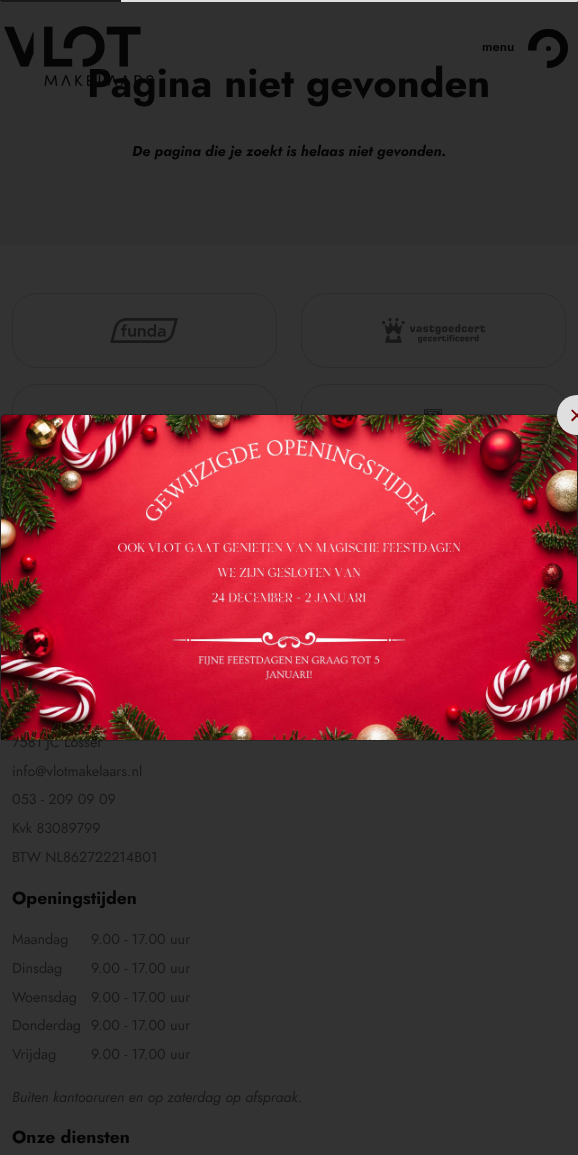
async function draw(canvas) {
	canvas.width = 578;
	canvas.height = 1155;
	const c = canvas.getContext('2d');
	c.miterLimit = 4;
	c.fontKerning = 'normal';
	async function loadImage(src) {
		const img = new Image();
		img.src = src;
		await img.decode();
		return img;
	}

	c.fillStyle = '#333';
	c.fillRect(0, 0, 578, 1155);
	c.fillStyle = '#303030';
	c.fillRect(0, 0, 578, 245);
	c.fillStyle = '#e0e0e0';
	c.beginPath();
	c.roundRect(0, -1, 578, 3, 1.5);
	c.fill();
	c.fillStyle = '#191817';
	c.beginPath();
	c.moveTo(1.5, -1);
	c.lineTo(121, -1);
	c.lineTo(121, 2);
	c.lineTo(1.5, 2);
	c.bezierCurveTo(0.5, 2, 0, 1.5, 0, 0.5);
	c.bezierCurveTo(0, -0.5, 0.5, -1, 1.5, -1);
	c.closePath();
	c.fill();
	c.font = 'bold 40px Jost';
	c.fillStyle = '#050505';
	c.fillText('Pagina niet gevonden', 87, 97);
	c.drawImage(await loadImage('img1.png'), 4, 26, 150, 60);
	c.drawImage(await loadImage('img2.png'), 528, 29, 40, 39);
	c.font = '600 13px Jost';
	c.fillText('menu', 482, 51);
	c.beginPath();
	c.arc(548.5, 48.5, 2.5, 0, 2 * Math.PI);
	c.fill();
	c.font = 'italic bold 14.4px Jost';
	c.fillText('De pagina die je zoekt is helaas niet gevonden.', 132, 156);
	c.beginPath();
	c.roundRect(12.5, 293.5, 264, 74, 24.5);
	c.strokeStyle = '#2c2c2c';
	c.stroke();
	c.drawImage(await loadImage('img3.png'), 110, 318, 68, 25);
	c.beginPath();
	c.roundRect(301.5, 293.5, 264, 74, 24.5);
	c.stroke();
	c.drawImage(await loadImage('img4.png'), 382, 318, 103, 25);
	c.beginPath();
	c.roundRect(12.5, 384.5, 264, 74, 24.5);
	c.stroke();
	c.drawImage(await loadImage('img5.png'), 119, 414, 51, 1);
	c.beginPath();
	c.roundRect(301.5, 384.5, 264, 74, 24.5);
	c.stroke();
	c.drawImage(await loadImage('img6.png'), 424, 409, 18, 6);
	c.font = '14.4px Jost';
	c.fillStyle = '#181818';
	c.fillText('7581 JC Losser', 12, 747);
	c.beginPath();
	c.roundRect(0.5, 414.5, 577, 326, 4.5);
	c.strokeStyle = '#00000033';
	c.stroke();
	c.drawImage(await loadImage('img7.png'), 1, 415, 576, 325);
	c.fillStyle = '#dfdfdf';
	c.beginPath();
	c.arc(577, 415, 20, 0, 2 * Math.PI);
	c.fill();
	c.fillStyle = '#780807';
	c.beginPath();
	c.moveTo(571, 420);
	c.lineTo(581.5, 409.5);
	c.lineTo(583, 410.5);
	c.lineTo(572.5, 421.5);
	c.closePath();
	c.fill();
	c.beginPath();
	c.moveTo(572.5, 409.5);
	c.lineTo(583, 420);
	c.lineTo(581.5, 421.5);
	c.lineTo(571, 410.5);
	c.closePath();
	c.fill();
	c.fillStyle = '#181818';
	for (const [text, x, y] of [
		['info@vlotmakelaars.nl', 12, 776],
		['053 - 209 09 09', 12, 804],
		['Kvk 83089799', 12, 833],
		['BTW NL862722214B01', 12, 862],
	]) {
		c.fillText(text, x, y);
	}
	c.font = 'bold 17.5px Jost';
	c.fillStyle = '#050505';
	c.fillText('Openingstijden', 12, 904);
	c.font = '14.4px Jost';
	c.fillStyle = '#181818';
	for (const [text, x, y] of [
		['Maandag', 12, 944],
		['9.00 - 17.00 uur', 91, 944],
		['Dinsdag', 12, 973],
		['9.00 - 17.00 uur', 91, 973],
		['Woensdag', 12, 1002],
		['9.00 - 17.00 uur', 91, 1002],
		['Donderdag', 12, 1030],
		['9.00 - 17.00 uur', 91, 1030],
		['Vrijdag', 12, 1059],
		['9.00 - 17.00 uur', 91, 1059],
	]) {
		c.fillText(text, x, y);
	}
	c.font = 'italic 14.4px Jost';
	c.fillText('Buiten kantooruren en op zaterdag op afspraak.', 12, 1102);
	c.font = 'bold 17.5px Jost';
	c.fillStyle = '#050505';
	c.fillText('Onze diensten', 12, 1143);
}

draw(document.querySelector('canvas'));
